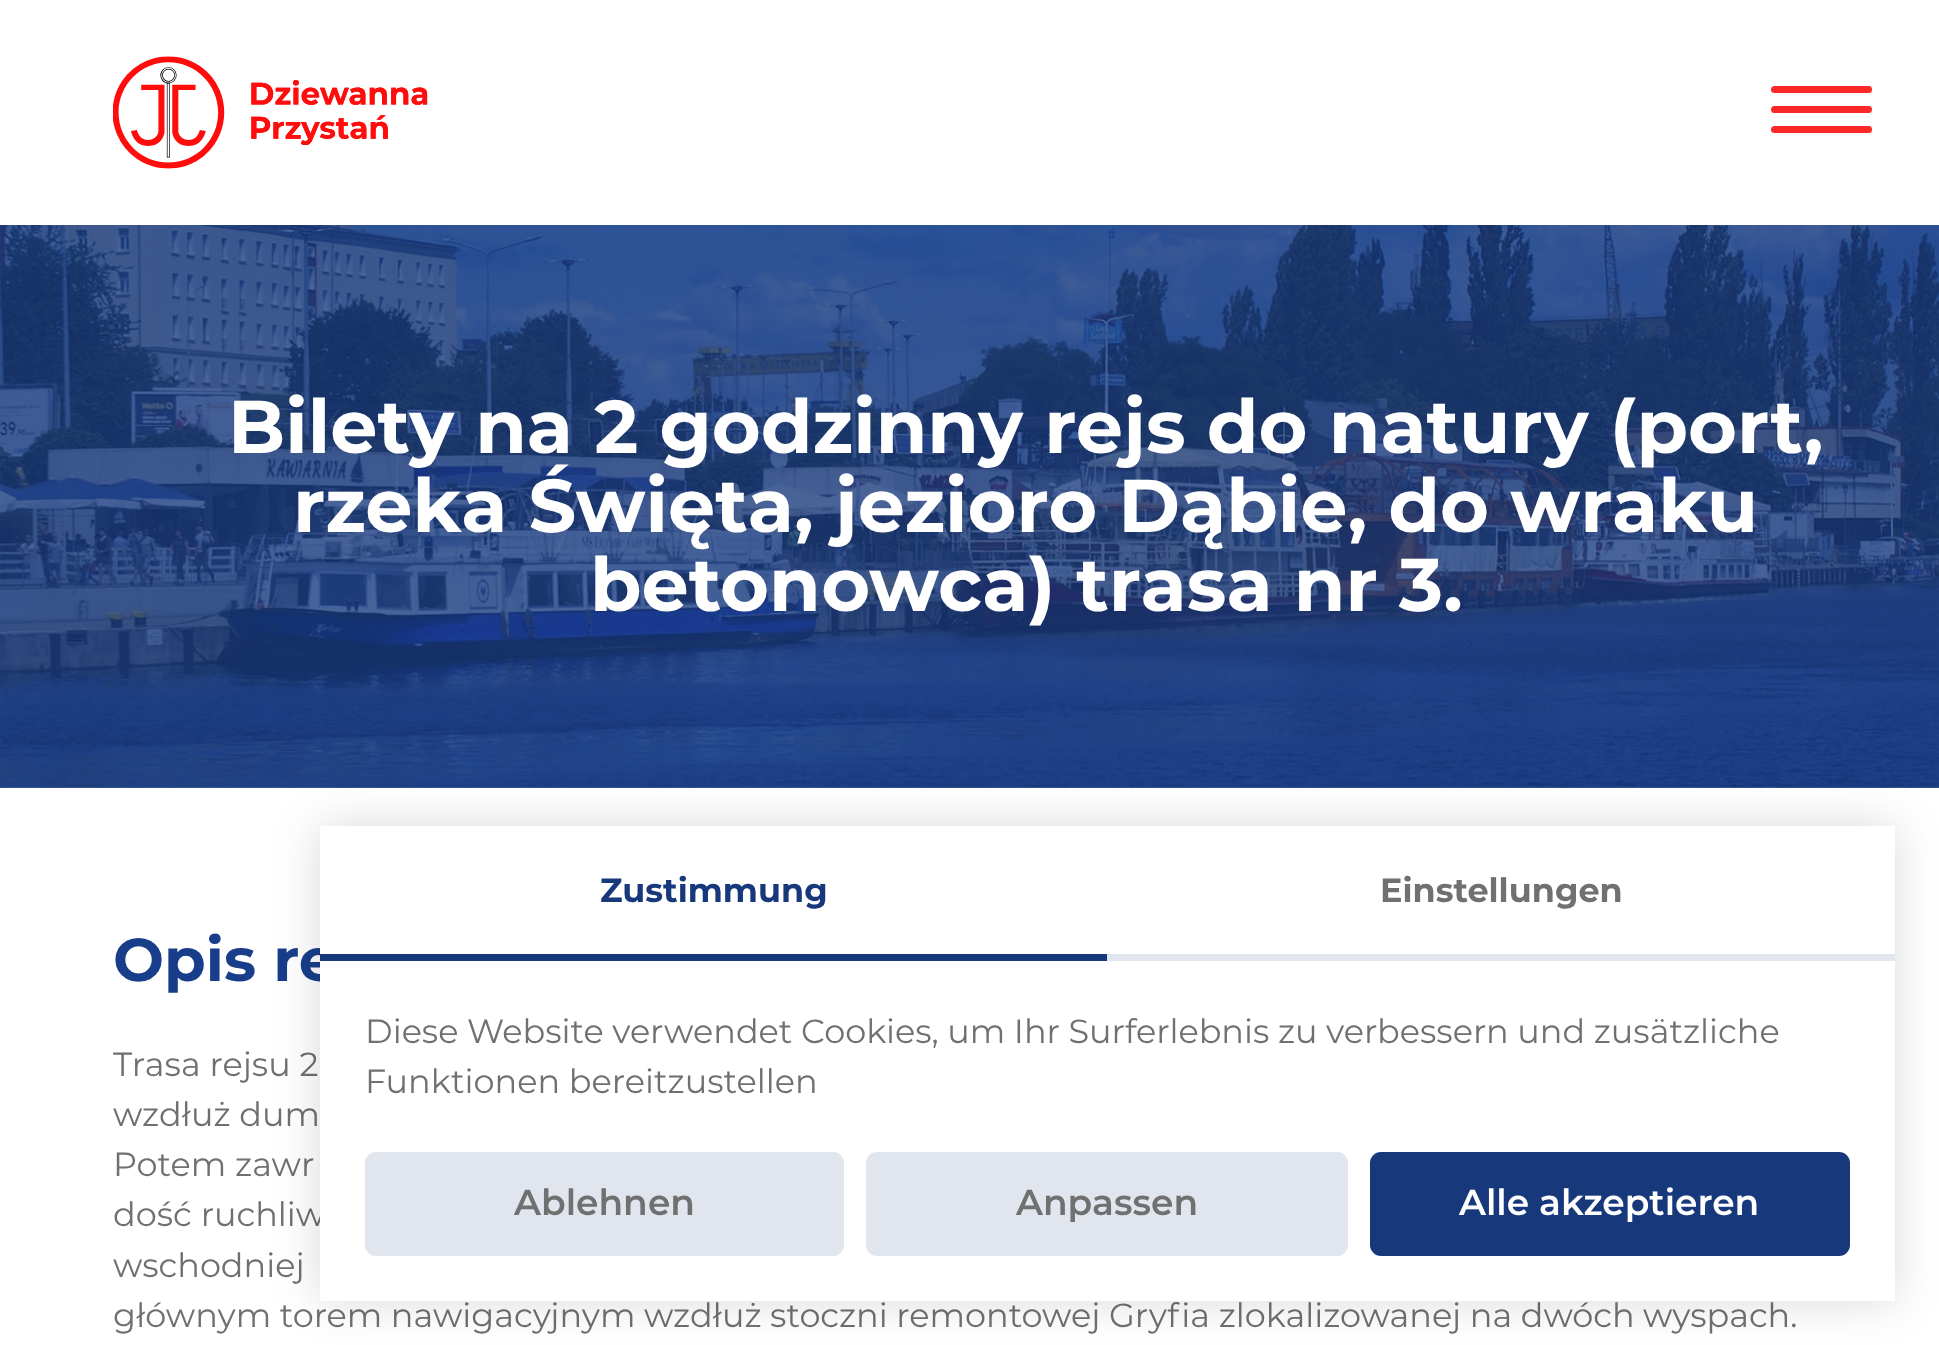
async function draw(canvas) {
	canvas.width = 1939;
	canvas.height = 1345;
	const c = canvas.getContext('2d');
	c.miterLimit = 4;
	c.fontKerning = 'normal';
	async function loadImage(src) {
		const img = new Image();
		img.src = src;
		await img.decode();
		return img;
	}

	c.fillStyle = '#fff';
	c.fillRect(0, 0, 1939, 1345);
	c.fillStyle = '#4a6599';
	c.fillRect(0, 225, 1939, 563);
	c.drawImage(await loadImage('img1.png'), 113, 56, 315, 113);
	c.fillStyle = '#fc2828';
	c.beginPath();
	c.roundRect(1771, 86, 101, 7, 3.5);
	c.fill();
	c.beginPath();
	c.roundRect(1771, 106, 101, 7, 3.5);
	c.fill();
	c.beginPath();
	c.roundRect(1771, 126, 101, 7, 3.5);
	c.fill();
	c.drawImage(await loadImage('img2.png'), 0, 225, 1939, 563);
	c.font = 'bold 74.8px Montserrat';
	c.fillStyle = '#fff';
	for (const [text, x, y] of [
		['Bilety na 2 godzinny rejs do natury (port,', 228, 453],
		['rzeka Święta, jezioro Dąbie, do wraku', 293, 532],
		['betonowca) trasa nr 3.', 590, 611],
	]) {
		c.fillText(text, x, y);
	}
	c.font = 'bold 60.5px Montserrat';
	c.fillStyle = '#183e8b';
	c.fillText('Opis re', 113, 981);
	c.font = '33.47px Montserrat';
	c.fillStyle = '#707070';
	for (const [text, x, y] of [
		['Trasa rejsu 2', 113, 1076],
		['wzdłuż dum', 113, 1126],
		['Potem zawr', 113, 1176],
		['dość ruchliw', 113, 1226],
		['wschodniej', 113, 1277],
	]) {
		c.fillText(text, x, y);
	}
	c.wordSpacing = '-0.25px';
	c.fillText('głównym torem nawigacyjnym wzdłuż stoczni remontowej Gryfia zlokalizowanej na dwóch wyspach.', 113, 1327);
	c.fillStyle = '#00000026';
	c.filter = 'blur(22.5px)';
	c.beginPath();
	c.rect(320, 826, 1575, 475);
	c.fill();
	c.filter = 'none';
	c.fillStyle = '#fff';
	c.fillRect(320, 826, 1575, 475);
	c.fillStyle = '#17397c';
	c.fillRect(320, 954, 787, 7);
	c.wordSpacing = '0px';
	c.font = 'bold 33.47px Montserrat';
	c.fillText('Zustimmung', 600, 902);
	c.fillStyle = '#e1e5ee';
	c.fillRect(1107, 954, 788, 7);
	c.fillStyle = '#707070';
	c.fillText('Einstellungen', 1380, 902);
	c.wordSpacing = '-0.25px';
	c.font = '33.47px Montserrat';
	c.fillText('Diese Website verwendet Cookies, um Ihr Surferlebnis zu verbessern und zusätzliche', 365, 1043);
	c.wordSpacing = '0px';
	c.fillText('Funktionen bereitzustellen', 365, 1093);
	c.fillStyle = '#e1e5ee';
	c.beginPath();
	c.roundRect(365, 1152, 479, 104, 11);
	c.fill();
	c.font = '600 36px Montserrat';
	c.fillStyle = '#707070';
	c.fillText('Ablehnen', 514, 1215);
	c.fillStyle = '#e1e5ee';
	c.beginPath();
	c.roundRect(866, 1152, 482, 104, 11);
	c.fill();
	c.fillStyle = '#707070';
	c.fillText('Anpassen', 1016, 1215);
	c.fillStyle = '#17397c';
	c.beginPath();
	c.roundRect(1370, 1152, 480, 104, 11);
	c.fill();
	c.fillStyle = '#fff';
	c.fillText('Alle akzeptieren', 1459, 1215);
}

draw(document.querySelector('canvas'));
